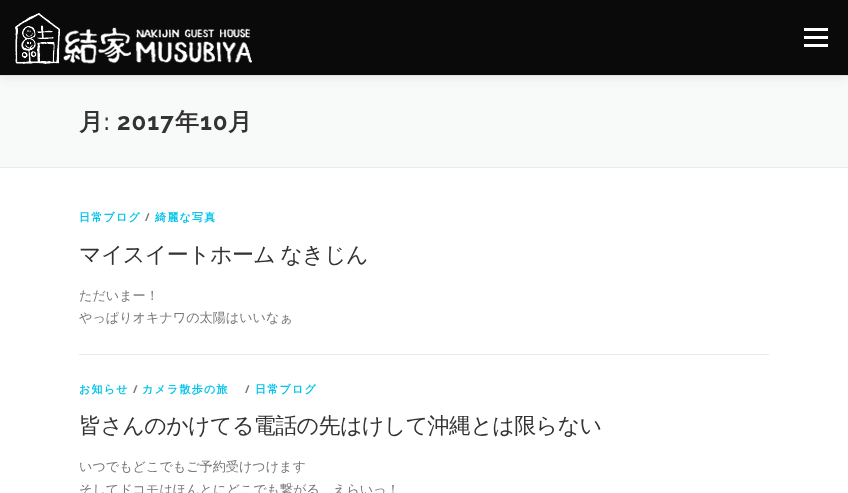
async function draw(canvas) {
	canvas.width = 848;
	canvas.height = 493;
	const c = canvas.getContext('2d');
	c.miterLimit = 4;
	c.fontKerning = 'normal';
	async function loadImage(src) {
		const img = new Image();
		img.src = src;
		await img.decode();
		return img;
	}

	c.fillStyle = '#fff';
	c.fillRect(0, 0, 848, 493);
	c.fillStyle = '#f8f9f9';
	c.fillRect(0, 76, 848, 91);
	c.fillStyle = '#e9e9e9';
	c.fillRect(0, 75, 848, 1);
	c.fillStyle = '#3232320f';
	c.filter = 'blur(5px)';
	c.beginPath();
	c.rect(0, 5, 848, 75);
	c.fill();
	c.filter = 'none';
	c.fillStyle = '#0a0a0a';
	c.fillRect(0, 0, 848, 75);
	c.drawImage(await loadImage('img1.png'), 15, 13, 237, 51);
	for (const [x, y, w, h, color] of [
		[804, 36, 24, 3, '#fff'],
		[804, 28, 24, 3, '#fff'],
		[804, 44, 24, 3, '#fff'],
		[0, 167, 848, 1, '#e9e9e9'],
	]) {
		c.fillStyle = color;
		c.fillRect(x, y, w, h);
	}
	c.letterSpacing = '1px';
	c.font = 'bold 24px WenQuanYi Zen Hei';
	c.fillStyle = '#333';
	c.fillText('月', 79, 130);
	c.font = '600 24px Raleway';
	c.fillText(':', 104, 130);
	c.font = 'bold 24px Raleway';
	c.fillText('2017', 117, 130);
	c.font = 'bold 24px WenQuanYi Zen Hei';
	c.fillText('年', 175, 130);
	c.font = 'bold 24px Raleway';
	c.fillText('10', 200, 130);
	c.font = 'bold 24px WenQuanYi Zen Hei';
	c.fillText('月', 228, 130);
	c.letterSpacing = '1.25px';
	c.font = 'bold 11px WenQuanYi Zen Hei';
	c.fillStyle = '#03c4eb';
	c.fillText('日常ブログ', 79, 221);
	c.font = 'bold 11px Open Sans';
	c.fillStyle = '#777';
	c.fillText('/', 145, 221);
	c.font = 'bold 11px WenQuanYi Zen Hei';
	c.fillStyle = '#03c4eb';
	c.fillText('綺麗な写真', 155, 221);
	c.letterSpacing = '-0.6px';
	c.wordSpacing = '-1px';
	c.font = '500 22px WenQuanYi Zen Hei';
	c.fillStyle = '#333';
	c.fillText('マイスイートホーム なきじん', 79, 262);
	c.letterSpacing = '0px';
	c.wordSpacing = '0px';
	c.font = '500 13.1px WenQuanYi Zen Hei';
	c.fillStyle = '#777';
	c.fillText('ただいまー！', 79, 300);
	c.fillText('やっぱりオキナワの太陽はいいなぁ', 79, 322);
	c.fillStyle = '#e9e9e9';
	c.fillRect(79, 354, 690, 1);
	c.letterSpacing = '1.25px';
	c.font = 'bold 11px WenQuanYi Zen Hei';
	c.fillStyle = '#03c4eb';
	c.fillText('お知らせ', 79, 393);
	c.font = 'bold 11px Open Sans';
	c.fillStyle = '#777';
	c.fillText('/', 133, 393);
	c.font = 'bold 11px WenQuanYi Zen Hei';
	c.fillStyle = '#03c4eb';
	c.fillText('カメラ散歩の旅', 142, 393);
	c.font = 'bold 11px Open Sans';
	c.fillStyle = '#777';
	c.fillText('/', 245, 393);
	c.font = 'bold 11px WenQuanYi Zen Hei';
	c.fillStyle = '#03c4eb';
	c.fillText('日常ブログ', 255, 393);
	c.letterSpacing = '-0.6px';
	c.font = '500 22px WenQuanYi Zen Hei';
	c.fillStyle = '#333';
	c.fillText('皆さんのかけてる電話の先はけして沖縄とは限らない', 79, 433);
	c.letterSpacing = '0px';
	c.font = '500 13.1px WenQuanYi Zen Hei';
	c.fillStyle = '#777';
	c.fillText('いつでもどこでもご予約受けつけます', 79, 471);
	c.fillText('そしてドコモはほんとにどこでも繋がる、えらいっ！', 79, 494);
}

draw(document.querySelector('canvas'));
